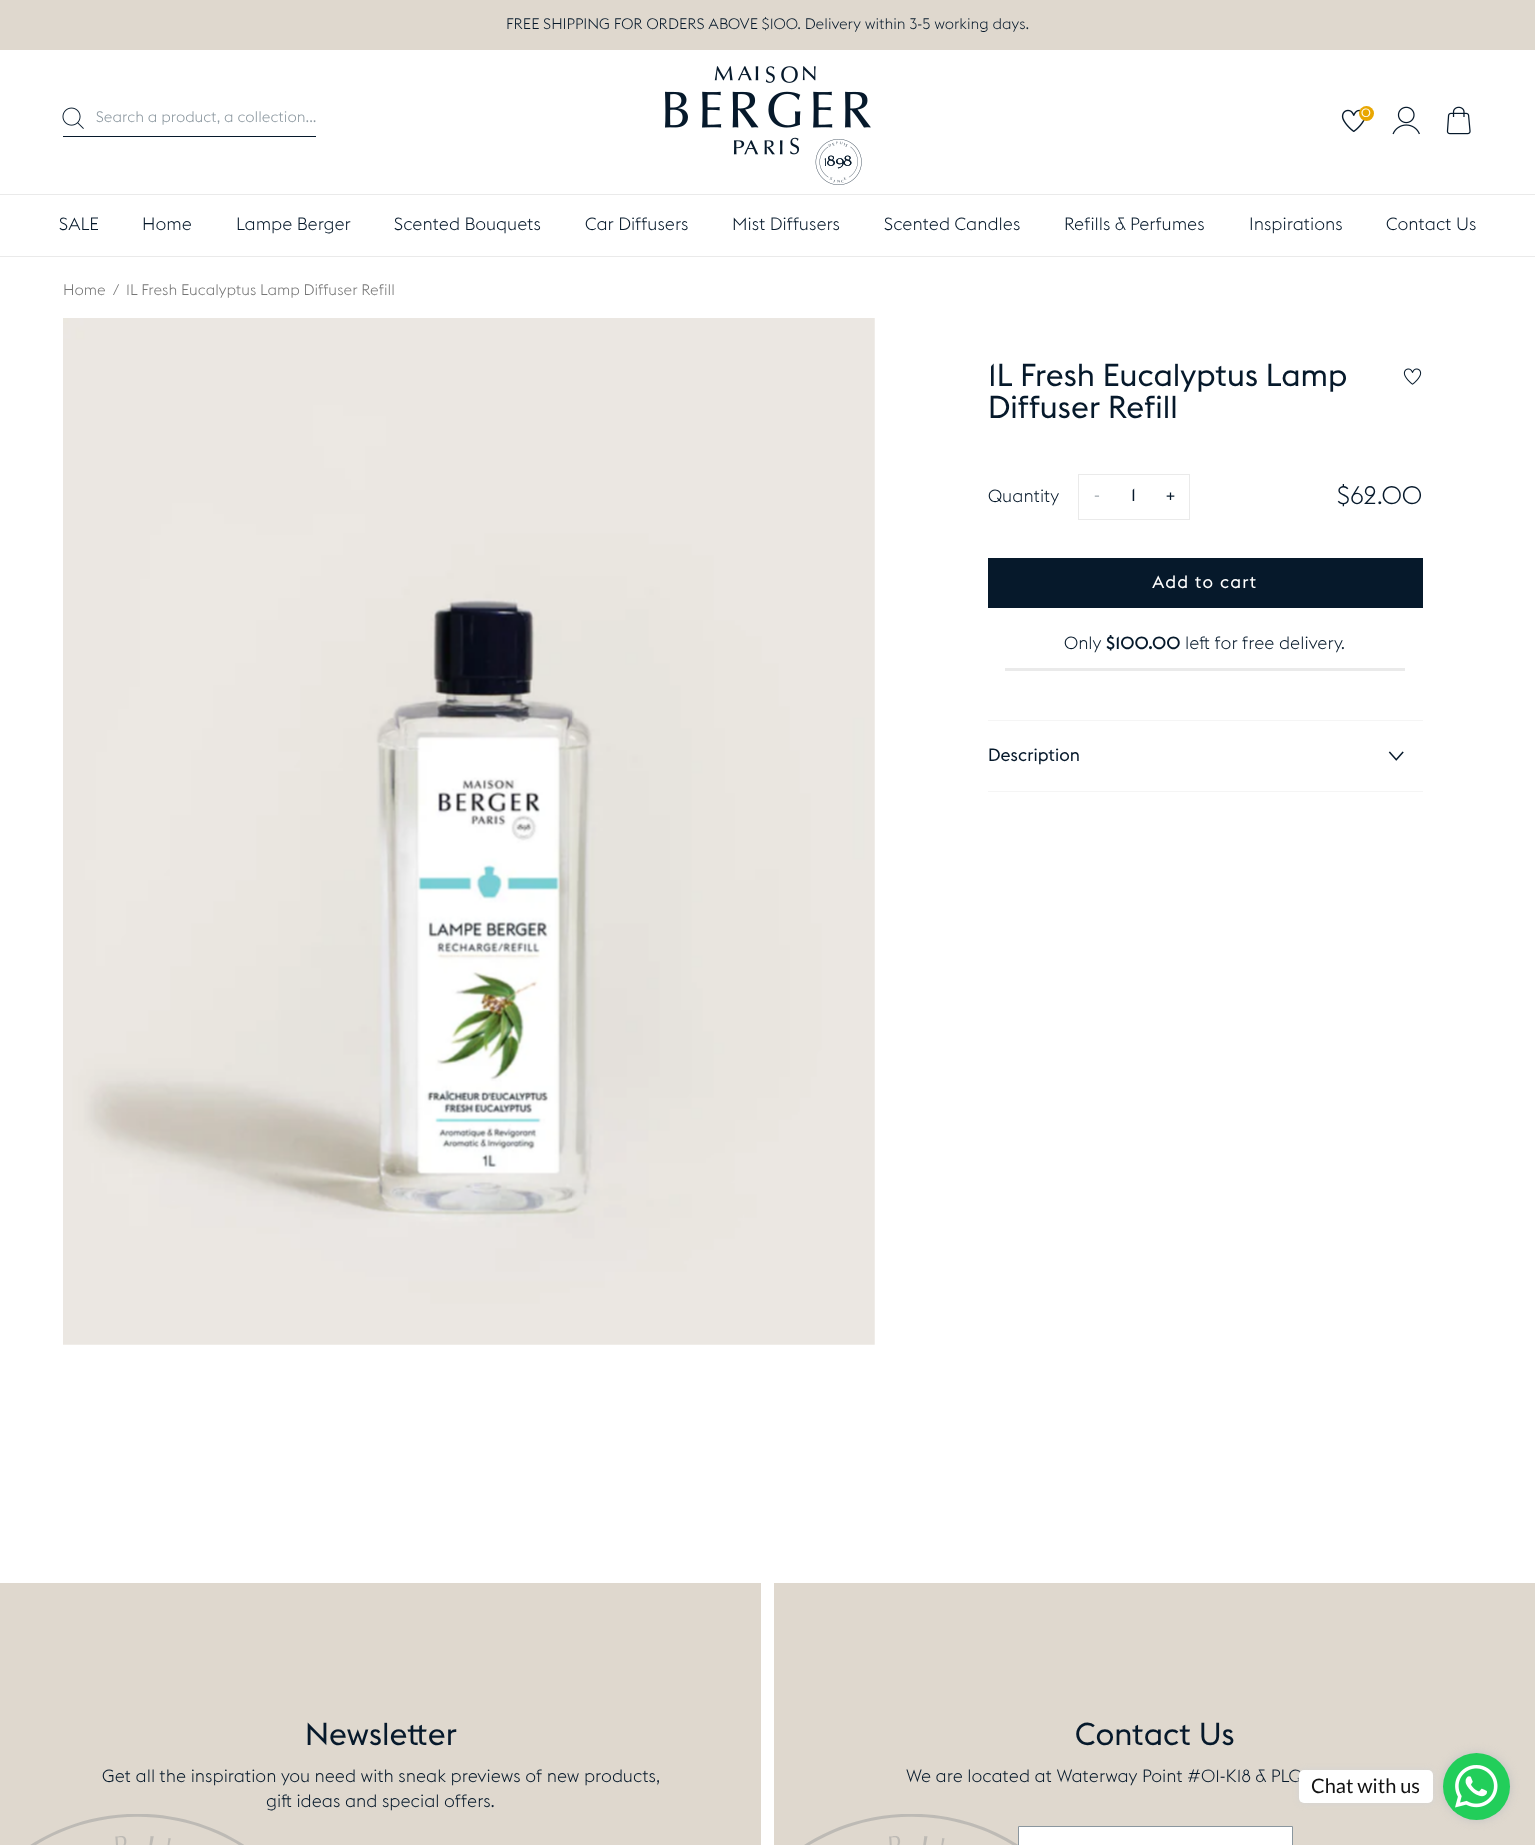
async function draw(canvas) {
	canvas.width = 1535;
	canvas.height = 1845;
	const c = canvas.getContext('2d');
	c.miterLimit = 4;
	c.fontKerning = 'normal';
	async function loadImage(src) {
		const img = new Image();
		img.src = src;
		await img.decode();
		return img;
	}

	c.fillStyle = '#fff';
	c.fillRect(0, 0, 1535, 1845);
	c.fillStyle = '#dfd8ce';
	c.fillRect(0, 0, 1535, 50);
	c.font = '300 15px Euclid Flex';
	c.fillStyle = '#06192b';
	c.fillText('FREE SHIPPING FOR ORDERS ABOVE $100. Delivery within 3-5 working days.', 506, 29);
	c.fillStyle = '#eaeaea';
	c.fillRect(0, 194, 1535, 1);
	c.fillStyle = '#06192b';
	c.fillRect(63, 136, 253, 1);
	c.drawImage(await loadImage('img1.png'), 62, 107, 22, 22);
	c.fillStyle = '#8a969e';
	c.fillText('Search a product, a collection...', 96, 122);
	c.drawImage(await loadImage('img2.png'), 665, 66, 206, 119);
	c.drawImage(await loadImage('img3.png'), 1341, 109, 24, 23);
	c.fillStyle = '#e9a701';
	c.beginPath();
	c.arc(1366.5, 113.5, 7.5, 0, 2 * Math.PI);
	c.fill();
	c.font = '12px Euclid Flex';
	c.fillStyle = '#fff';
	c.fillText('0', 1361, 117);
	c.drawImage(await loadImage('img4.png'), 1392, 106, 28, 29);
	c.drawImage(await loadImage('img5.png'), 1446, 106, 25, 29);
	c.fillStyle = '#eaeaea';
	c.fillRect(0, 256, 1535, 1);
	c.font = '300 17.5px Euclid Flex';
	c.fillStyle = '#06192b';
	for (const [text, x, y] of [
		['SALE', 59, 230],
		['Home', 142, 230],
		['Lampe Berger', 236, 230],
		['Scented Bouquets', 394, 230],
		['Car Diffusers', 585, 230],
		['Mist Diffusers', 732, 230],
		['Scented Candles', 884, 230],
		['Refills & Perfumes', 1064, 230],
		['Inspirations', 1249, 230],
		['Contact Us', 1386, 230],
	]) {
		c.fillText(text, x, y);
	}
	c.font = '300 15px Euclid Flex';
	c.fillStyle = '#757575';
	for (const [text, x, y] of [
		['Home', 63, 295],
		['/', 113, 295],
		['1L Fresh Eucalyptus Lamp Diffuser Refill', 126, 295],
	]) {
		c.fillText(text, x, y);
	}
	c.drawImage(await loadImage('img6.png'), 63, 318, 812, 1027);
	c.font = '31.25px Euclid Flex';
	c.fillStyle = '#06192b';
	c.fillText('1L Fresh Eucalyptus Lamp', 988, 386);
	c.drawImage(await loadImage('img7.png'), 1403, 368, 19, 17);
	c.fillText('Diffuser Refill', 988, 418);
	c.font = '300 17.5px Euclid Flex';
	c.fillText('Quantity', 988, 502);
	c.strokeStyle = '#eaeaea';
	c.strokeRect(1078.5, 474.5, 111, 45);
	c.font = '17.5px Euclid Flex';
	c.fillStyle = '#b4babf';
	c.fillText('-', 1094, 501);
	c.fillStyle = '#06192b';
	c.fillText('1', 1131, 501);
	c.fillText('+', 1165, 501);
	c.font = '300 25px Euclid Flex';
	c.fillText('$62.00', 1337, 504);
	c.fillRect(988, 558, 435, 50);
	c.letterSpacing = '1.25px';
	c.font = '17.5px Euclid Flex';
	c.fillStyle = '#fff';
	c.fillText('Add to cart', 1152, 588);
	c.letterSpacing = '0px';
	c.font = '300 17.5px Euclid Flex';
	c.fillStyle = '#06192b';
	c.fillText('Only', 1064, 649);
	c.font = '500 17.5px Euclid Flex';
	c.fillText('$100.00', 1106, 649);
	c.font = '300 17.5px Euclid Flex';
	c.fillText('left for free delivery.', 1185, 649);
	for (const [x, y, w, h, color] of [
		[1005, 668, 400, 3, '#eaeaea'],
		[988, 720, 435, 1, '#f5f5f5'],
		[988, 791, 435, 1, '#f5f5f5'],
	]) {
		c.fillStyle = color;
		c.fillRect(x, y, w, h);
	}
	c.font = '17.5px Euclid Flex';
	c.fillStyle = '#06192b';
	c.fillText('Description', 988, 761);
	c.drawImage(await loadImage('img8.png'), 1388, 751, 16, 10);
	c.fillStyle = '#dfd8ce';
	c.fillRect(0, 1583, 761, 262);
	c.font = '31.25px Euclid Flex';
	c.fillStyle = '#06192b';
	c.fillText('Newsletter', 305, 1745);
	c.font = '300 17.5px Euclid Flex';
	c.fillText('Get all the inspiration you need with sneak previews of new products,', 102, 1782);
	c.fillText('gift ideas and special offers.', 266, 1807);
	c.drawImage(await loadImage('img9.png'), 30, 1814, 214, 31);
	c.fillStyle = '#dfd8ce';
	c.fillRect(774, 1583, 761, 262);
	c.font = '31.25px Euclid Flex';
	c.fillStyle = '#06192b';
	c.fillText('Contact Us', 1075, 1745);
	c.font = '300 17.5px Euclid Flex';
	c.fillText('We are located at Waterway Point #01-K18 & PLQ', 906, 1782);
	c.fillStyle = '#fff';
	c.beginPath();
	c.rect(1018.5, 1826.5, 274, 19);
	c.fill();
	c.strokeStyle = '#8a969e';
	c.stroke();
	c.drawImage(await loadImage('img10.png'), 804, 1814, 214, 31);
	c.fillStyle = '#d3d3d3';
	c.filter = 'blur(3px)';
	c.beginPath();
	c.roundRect(1299, 1770, 134, 33, 5);
	c.fill();
	c.filter = 'none';
	c.fillStyle = '#fff';
	c.beginPath();
	c.roundRect(1299, 1770, 134, 33, 5);
	c.fill();
	c.font = '20px Lato';
	c.fillStyle = '#111';
	c.fillText('Chat with us', 1311, 1793);
	c.fillStyle = '#c2c2c2';
	c.filter = 'blur(5px)';
	c.beginPath();
	c.roundRect(1443, 1753, 67, 67, 33.5);
	c.fill();
	c.filter = 'none';
	c.fillStyle = '#22ce5a';
	c.beginPath();
	c.arc(1476.5, 1786.5, 33.5, 0, 2 * Math.PI);
	c.fill();
	c.drawImage(await loadImage('img11.png'), 1455, 1765, 43, 43);
}

draw(document.querySelector('canvas'));
